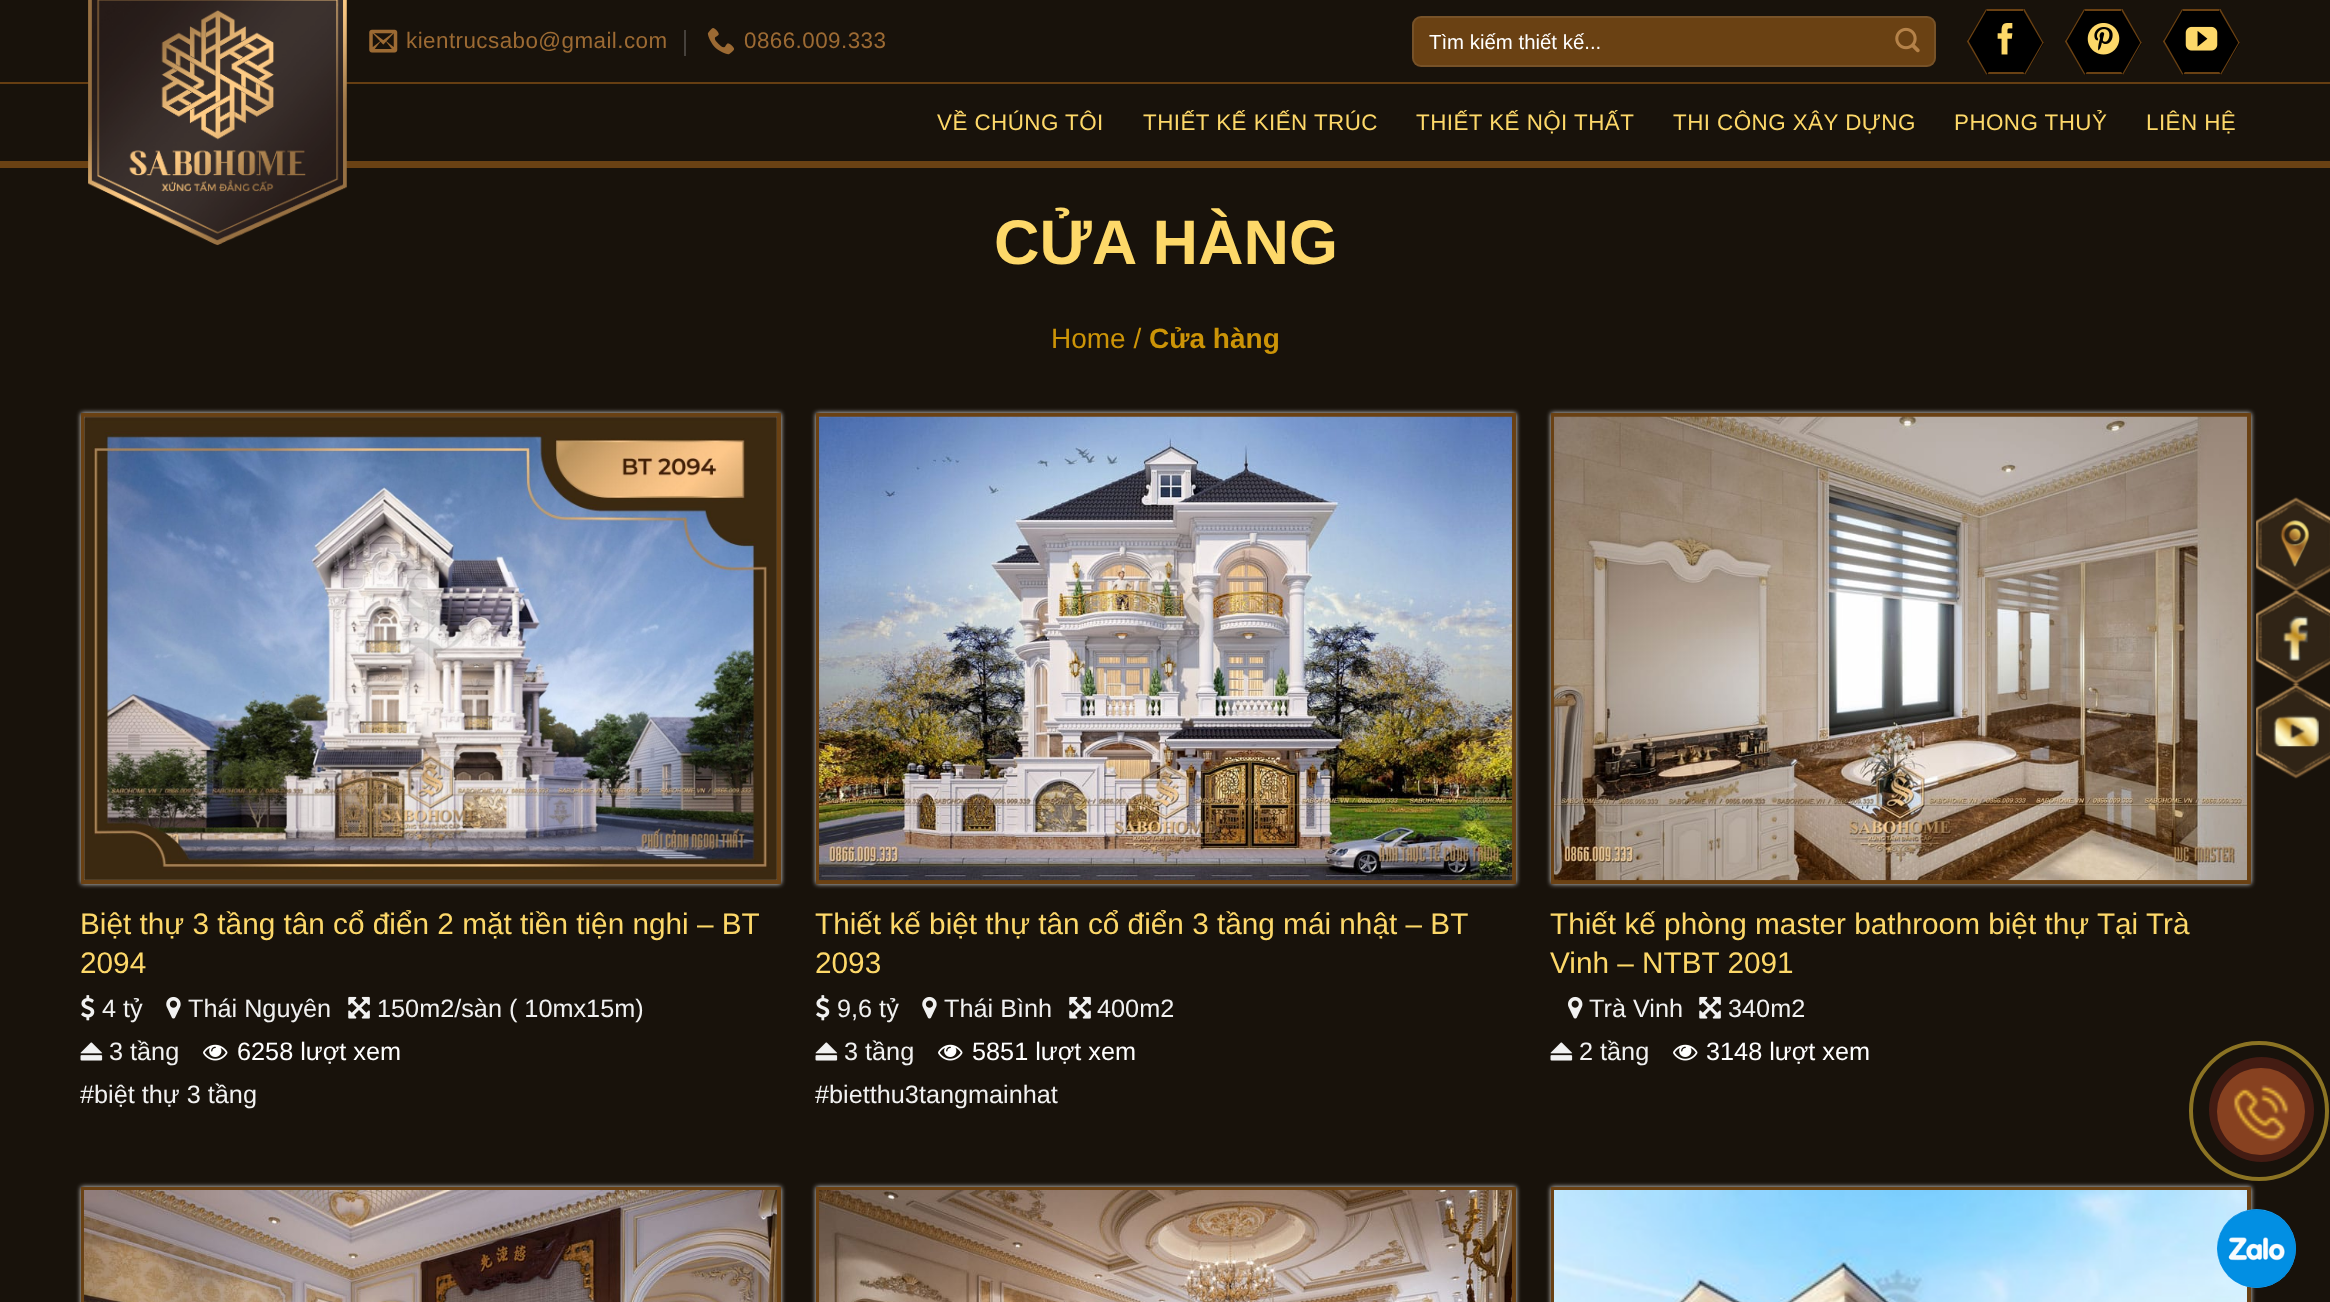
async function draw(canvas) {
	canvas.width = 2330;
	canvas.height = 1302;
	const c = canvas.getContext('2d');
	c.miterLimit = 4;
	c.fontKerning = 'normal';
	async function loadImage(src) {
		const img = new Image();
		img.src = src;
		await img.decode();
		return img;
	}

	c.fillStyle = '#18120b';
	c.fillRect(0, 0, 2330, 1302);
	c.fillStyle = '#663e12';
	c.fillRect(0, 82, 2330, 2);
	c.drawImage(await loadImage('img1.png'), 369, 29, 29, 24);
	c.letterSpacing = '0.45px';
	c.font = '22.4px Liberation Sans';
	c.fillStyle = '#9c6a33';
	c.fillText('kientrucsabo@gmail.com', 406, 48);
	c.fillStyle = '#46413c';
	c.fillRect(684, 30, 2, 26);
	c.drawImage(await loadImage('img2.png'), 707, 28, 27, 27);
	c.fillStyle = '#9c6a33';
	c.fillText('0866.009.333', 744, 48);
	c.fillStyle = '#6a4113';
	c.beginPath();
	c.roundRect(1412, 16, 524, 51, 9);
	c.fill();
	c.beginPath();
	c.roundRect(1413, 17, 522, 49, 8);
	c.strokeStyle = '#ffffff17';
	c.lineWidth = 2;
	c.stroke();
	c.letterSpacing = '0px';
	c.font = '20.4px Liberation Sans';
	c.fillStyle = '#fff';
	c.fillText('Tìm kiếm thiết kế...', 1429, 49);
	c.drawImage(await loadImage('img3.png'), 1895, 27, 25, 26);
	for (const [x, y, w, h, color] of [
		[1987, 11, 37, 61, '#000'],
		[1986, 9, 39, 2, '#6a4113'],
		[1986, 72, 39, 2, '#6a4113'],
	]) {
		c.fillStyle = color;
		c.fillRect(x, y, w, h);
	}
	c.fillStyle = '#000';
	c.beginPath();
	c.moveTo(1967, 41);
	c.lineTo(1986, 9);
	c.lineTo(2005, 43);
	c.lineTo(1987, 75);
	c.closePath();
	c.fill();
	c.fillStyle = '#6a4113';
	c.beginPath();
	c.moveTo(1967, 41.5);
	c.lineTo(1986, 9);
	c.lineTo(1986.5, 10.5);
	c.lineTo(1968, 42.5);
	c.closePath();
	c.fill();
	c.beginPath();
	c.moveTo(1967, 41.5);
	c.lineTo(1968, 40);
	c.lineTo(1987, 73.5);
	c.lineTo(1986.5, 75);
	c.closePath();
	c.fill();
	c.fillStyle = '#000';
	c.beginPath();
	c.moveTo(2006, 41);
	c.lineTo(2024, 9);
	c.lineTo(2044, 43);
	c.lineTo(2025, 75);
	c.closePath();
	c.fill();
	c.fillStyle = '#6a4113';
	c.beginPath();
	c.moveTo(2023.5, 10.5);
	c.lineTo(2024.5, 9);
	c.lineTo(2043.5, 42.5);
	c.lineTo(2043, 44);
	c.closePath();
	c.fill();
	c.beginPath();
	c.moveTo(2024.5, 73.5);
	c.lineTo(2043, 41.5);
	c.lineTo(2043.5, 42.5);
	c.lineTo(2025, 75);
	c.closePath();
	c.fill();
	c.drawImage(await loadImage('img4.png'), 1997, 23, 16, 32);
	for (const [x, y, w, h, color] of [
		[2085, 11, 37, 61, '#000'],
		[2084, 9, 39, 2, '#6a4113'],
		[2084, 72, 39, 2, '#6a4113'],
	]) {
		c.fillStyle = color;
		c.fillRect(x, y, w, h);
	}
	c.fillStyle = '#000';
	c.beginPath();
	c.moveTo(2065, 41);
	c.lineTo(2084, 9);
	c.lineTo(2103, 43);
	c.lineTo(2085, 75);
	c.closePath();
	c.fill();
	c.fillStyle = '#6a4113';
	c.beginPath();
	c.moveTo(2065, 41.5);
	c.lineTo(2084, 9);
	c.lineTo(2084.5, 10.5);
	c.lineTo(2066, 42.5);
	c.closePath();
	c.fill();
	c.beginPath();
	c.moveTo(2065, 41.5);
	c.lineTo(2066, 40);
	c.lineTo(2085, 73.5);
	c.lineTo(2084.5, 75);
	c.closePath();
	c.fill();
	c.fillStyle = '#000';
	c.beginPath();
	c.moveTo(2104, 41);
	c.lineTo(2122, 9);
	c.lineTo(2142, 43);
	c.lineTo(2123, 75);
	c.closePath();
	c.fill();
	c.drawImage(await loadImage('img5.png'), 2087, 23, 33, 32);
	c.fillStyle = '#6a4113';
	c.beginPath();
	c.moveTo(2121.5, 10.5);
	c.lineTo(2122.5, 9);
	c.lineTo(2141.5, 42.5);
	c.lineTo(2141, 44);
	c.closePath();
	c.fill();
	c.beginPath();
	c.moveTo(2122.5, 73.5);
	c.lineTo(2141, 41.5);
	c.lineTo(2141.5, 42.5);
	c.lineTo(2123, 75);
	c.closePath();
	c.fill();
	for (const [x, y, w, h, color] of [
		[2183, 11, 37, 61, '#000'],
		[2182, 9, 39, 2, '#6a4113'],
		[2182, 72, 39, 2, '#6a4113'],
	]) {
		c.fillStyle = color;
		c.fillRect(x, y, w, h);
	}
	c.fillStyle = '#000';
	c.beginPath();
	c.moveTo(2163, 41);
	c.lineTo(2182, 9);
	c.lineTo(2201, 43);
	c.lineTo(2183, 75);
	c.closePath();
	c.fill();
	c.fillStyle = '#6a4113';
	c.beginPath();
	c.moveTo(2163, 41.5);
	c.lineTo(2182, 9);
	c.lineTo(2182.5, 10.5);
	c.lineTo(2164, 42.5);
	c.closePath();
	c.fill();
	c.beginPath();
	c.moveTo(2163, 41.5);
	c.lineTo(2164, 40);
	c.lineTo(2183, 73.5);
	c.lineTo(2182.5, 75);
	c.closePath();
	c.fill();
	c.fillStyle = '#000';
	c.beginPath();
	c.moveTo(2202, 41);
	c.lineTo(2220, 9);
	c.lineTo(2240, 43);
	c.lineTo(2221, 75);
	c.closePath();
	c.fill();
	c.drawImage(await loadImage('img6.png'), 2185, 26, 33, 25);
	c.fillStyle = '#6a4113';
	c.beginPath();
	c.moveTo(2219.5, 10.5);
	c.lineTo(2220.5, 9);
	c.lineTo(2239.5, 42.5);
	c.lineTo(2239, 44);
	c.closePath();
	c.fill();
	c.beginPath();
	c.moveTo(2220.5, 73.5);
	c.lineTo(2239, 41.5);
	c.lineTo(2239.5, 42.5);
	c.lineTo(2221, 75);
	c.closePath();
	c.fill();
	c.fillRect(0, 161, 2330, 7);
	c.drawImage(await loadImage('img7.png'), 88, 0, 259, 246);
	c.letterSpacing = '0.45px';
	c.font = '22.4px Liberation Sans';
	c.fillStyle = '#fdd869';
	for (const [text, x, y] of [
		['VỀ CHÚNG TÔI', 937, 130],
		['THIẾT KẾ KIẾN TRÚC', 1143, 130],
		['THIẾT KẾ NỘI THẤT', 1416, 130],
		['THI CÔNG XÂY DỰNG', 1673, 130],
		['PHONG THUỶ', 1954, 130],
		['LIÊN HỆ', 2146, 130],
	]) {
		c.fillText(text, x, y);
	}
	c.letterSpacing = '0px';
	c.font = 'bold 63px Liberation Sans';
	c.fillText('CỬA HÀNG', 994, 264);
	c.font = '28px Liberation Sans';
	c.fillStyle = '#cc9407';
	c.fillText('Home /', 1051, 348);
	c.font = 'bold 28px Liberation Sans';
	c.fillText('Cửa hàng', 1149, 348);
	c.fillStyle = '#e5e5e5';
	c.filter = 'blur(2.5px)';
	c.beginPath();
	c.rect(81, 413, 700, 471);
	c.fill();
	c.filter = 'none';
	c.strokeStyle = '#6a4113';
	c.lineWidth = 4;
	c.strokeRect(83, 415, 696, 467);
	c.drawImage(await loadImage('img8.png'), 84, 416, 693, 464);
	c.font = '29.75px Liberation Sans';
	c.fillStyle = '#fdd869';
	c.fillText('Biệt thự 3 tầng tân cổ điển 2 mặt tiền tiện nghi – BT', 80, 934);
	c.fillText('2094', 80, 973);
	c.drawImage(await loadImage('img9.png'), 81, 995, 14, 26);
	c.font = '25.25px Liberation Sans';
	c.fillStyle = '#f1f1f1';
	c.fillText('4 tỷ', 102, 1017);
	c.drawImage(await loadImage('img10.png'), 166, 996, 15, 23);
	c.fillText('Thái Nguyên', 188, 1017);
	c.drawImage(await loadImage('img11.png'), 348, 996, 22, 23);
	c.fillText('150m2/sàn ( 10mx15m)', 377, 1017);
	c.drawImage(await loadImage('img12.png'), 80, 1042, 23, 19);
	c.fillText('3 tầng', 109, 1060);
	c.drawImage(await loadImage('img13.png'), 203, 1044, 25, 17);
	c.fillStyle = '#fff';
	c.fillText('6258 lượt xem', 237, 1060);
	c.fillStyle = '#f1f1f1';
	c.fillText('#biệt thự 3 tầng', 80, 1103);
	c.fillStyle = '#e5e5e5';
	c.filter = 'blur(2.5px)';
	c.beginPath();
	c.rect(816, 413, 700, 471);
	c.fill();
	c.filter = 'none';
	c.strokeRect(818, 415, 696, 467);
	c.drawImage(await loadImage('img14.png'), 819, 416, 693, 465);
	c.font = '29.75px Liberation Sans';
	c.fillStyle = '#fdd869';
	c.fillText('Thiết kế biệt thự tân cổ điển 3 tầng mái nhật – BT', 815, 934);
	c.fillText('2093', 815, 973);
	c.drawImage(await loadImage('img9.png'), 816, 995, 14, 26);
	c.font = '25.25px Liberation Sans';
	c.fillStyle = '#f1f1f1';
	c.fillText('9,6 tỷ', 837, 1017);
	c.drawImage(await loadImage('img10.png'), 922, 996, 15, 23);
	c.fillText('Thái Bình', 944, 1017);
	c.drawImage(await loadImage('img11.png'), 1069, 996, 22, 23);
	c.fillText('400m2', 1097, 1017);
	c.drawImage(await loadImage('img12.png'), 815, 1042, 23, 19);
	c.fillText('3 tầng', 844, 1060);
	c.drawImage(await loadImage('img13.png'), 938, 1044, 25, 17);
	c.fillStyle = '#fff';
	c.fillText('5851 lượt xem', 972, 1060);
	c.fillStyle = '#f1f1f1';
	c.fillText('#bietthu3tangmainhat', 815, 1103);
	c.fillStyle = '#e5e5e5';
	c.filter = 'blur(2.5px)';
	c.beginPath();
	c.rect(1551, 413, 700, 471);
	c.fill();
	c.filter = 'none';
	c.strokeRect(1553, 415, 696, 467);
	c.drawImage(await loadImage('img15.png'), 1554, 416, 693, 465);
	c.font = '29.75px Liberation Sans';
	c.fillStyle = '#fdd869';
	c.fillText('Thiết kế phòng master bathroom biệt thự Tại Trà', 1550, 934);
	c.fillText('Vinh – NTBT 2091', 1550, 973);
	c.drawImage(await loadImage('img16.png'), 1568, 996, 15, 23);
	c.font = '25.25px Liberation Sans';
	c.fillStyle = '#f1f1f1';
	c.fillText('Trà Vinh', 1589, 1017);
	c.drawImage(await loadImage('img11.png'), 1699, 996, 22, 23);
	c.fillText('340m2', 1728, 1017);
	c.drawImage(await loadImage('img12.png'), 1550, 1042, 23, 19);
	c.fillText('2 tầng', 1579, 1060);
	c.drawImage(await loadImage('img13.png'), 1673, 1044, 25, 17);
	c.fillStyle = '#fff';
	c.fillText('3148 lượt xem', 1706, 1060);
	c.fillStyle = '#e5e5e5';
	c.filter = 'blur(2.5px)';
	c.beginPath();
	c.rect(81, 1187, 700, 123);
	c.fill();
	c.filter = 'none';
	c.strokeRect(83, 1189, 696, 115);
	c.drawImage(await loadImage('img17.png'), 84, 1190, 693, 112);
	c.filter = 'blur(2.5px)';
	c.beginPath();
	c.rect(816, 1187, 700, 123);
	c.fill();
	c.filter = 'none';
	c.strokeRect(818, 1189, 696, 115);
	c.drawImage(await loadImage('img18.png'), 819, 1190, 693, 112);
	c.filter = 'blur(2.5px)';
	c.beginPath();
	c.rect(1551, 1187, 700, 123);
	c.fill();
	c.filter = 'none';
	c.strokeRect(1553, 1189, 696, 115);
	c.drawImage(await loadImage('img19.png'), 1554, 1190, 693, 112);
	c.drawImage(await loadImage('img20.png'), 2256, 497, 74, 96);
	c.drawImage(await loadImage('img21.png'), 2256, 590, 74, 96);
	c.drawImage(await loadImage('img22.png'), 2256, 683, 74, 96);
	c.fillStyle = '#6c401b';
	c.beginPath();
	c.roundRect(2217, 1068, 88, 87, 43.5);
	c.fill();
	c.drawImage(await loadImage('img23.png'), 2233, 1085, 56, 57);
	c.beginPath();
	c.arc(2259, 1111, 68, 0, 2 * Math.PI);
	c.strokeStyle = '#8b7323';
	c.stroke();
	c.fillStyle = '#f4443833';
	c.beginPath();
	c.arc(2261.5, 1109.5, 52.5, 0, 2 * Math.PI);
	c.fill();
	c.fillStyle = '#028fe3';
	c.beginPath();
	c.arc(2256.5, 1248.5, 39.5, 0, 2 * Math.PI);
	c.fill();
	c.drawImage(await loadImage('img24.png'), 2217, 1209, 79, 79);
}

draw(document.querySelector('canvas'));
